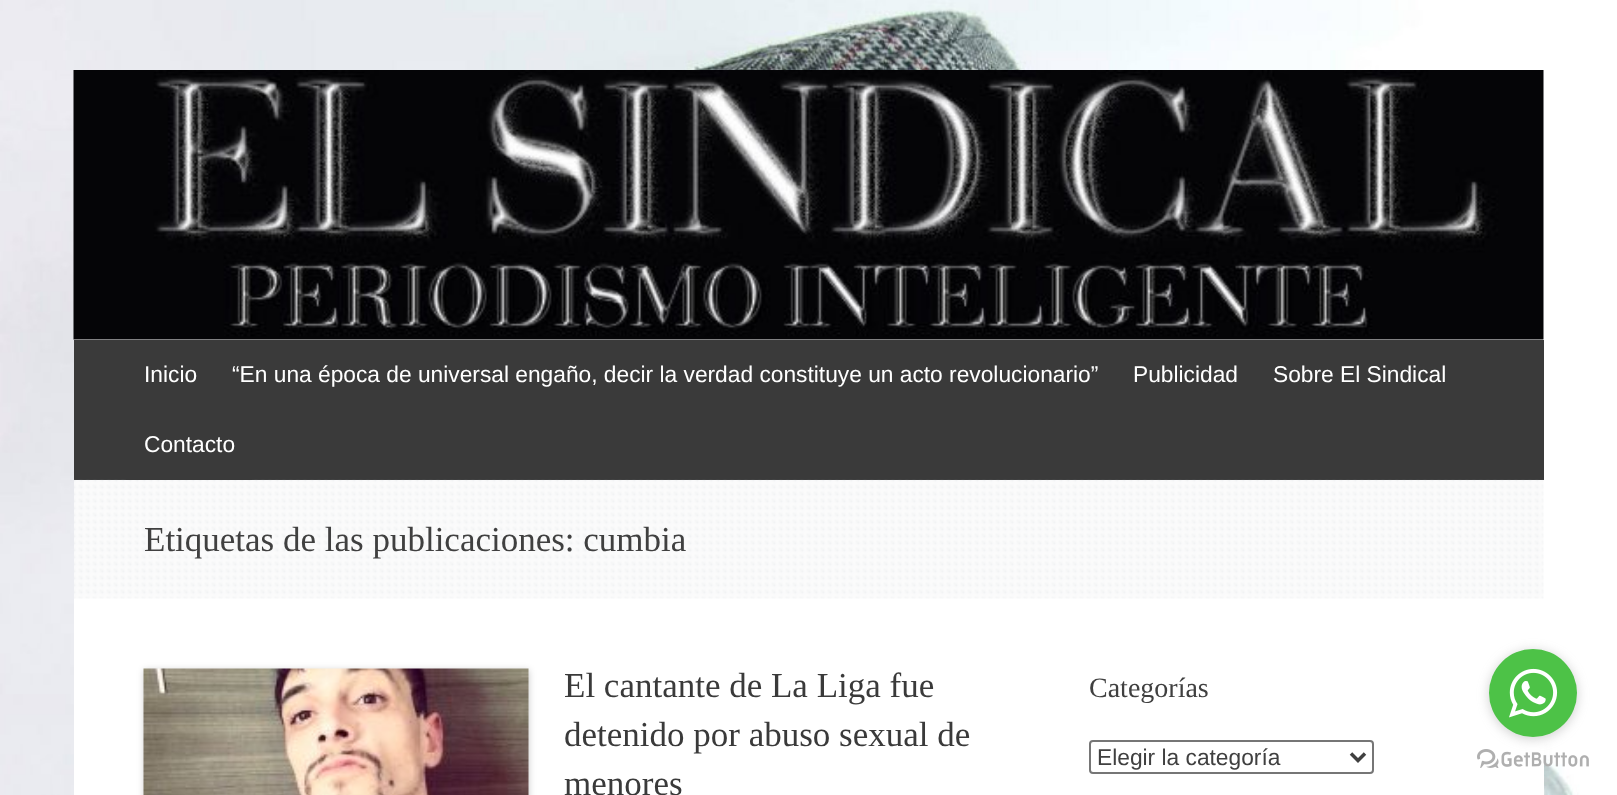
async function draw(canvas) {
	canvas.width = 1617;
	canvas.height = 795;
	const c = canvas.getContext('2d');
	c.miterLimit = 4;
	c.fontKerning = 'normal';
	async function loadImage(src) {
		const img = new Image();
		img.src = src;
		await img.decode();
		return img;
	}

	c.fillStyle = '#fff';
	c.fillRect(0, 0, 1617, 795);
	c.drawImage(await loadImage('img1.png'), 0, 0, 1617, 795);
	c.fillRect(74, 70, 1470, 725);
	c.drawImage(await loadImage('img2.png'), 73, 70, 1471, 270);
	c.fillStyle = '#3a3a3a';
	c.fillRect(74, 340, 1470, 140);
	c.font = '22.75px Liberation Sans';
	c.fillStyle = '#fff';
	for (const [text, x, y] of [
		['Inicio', 144, 382],
		['“En una época de universal engaño, decir la verdad constituye un acto revolucionario”', 232, 382],
		['Publicidad', 1133, 382],
		['Sobre El Sindical', 1273, 382],
	]) {
		c.fillText(text, x, y);
	}
	c.drawImage(await loadImage('img3.png'), 74, 479, 1470, 120);
	c.fillStyle = '#3a3a3a';
	c.fillRect(126, 479, 126, 1);
	c.fillStyle = '#fff';
	c.fillText('Contacto', 144, 452);
	c.font = '35px Liberation Serif';
	c.fillStyle = '#404040';
	c.fillText('Etiquetas de las publicaciones: cumbia', 144, 551);
	c.fillStyle = '#00000033';
	c.filter = 'blur(3.5px)';
	c.beginPath();
	c.rect(144, 670, 385, 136);
	c.fill();
	c.filter = 'none';
	c.drawImage(await loadImage('img4.png'), 143, 668, 386, 127);
	c.fillStyle = '#3a3a3a';
	for (const [text, x, y] of [
		['El cantante de La Liga fue', 564, 697],
		['detenido por abuso sexual de', 564, 746],
		['menores', 564, 795],
	]) {
		c.fillText(text, x, y);
	}
	c.font = '28px Liberation Serif';
	c.fillStyle = '#404040';
	c.fillText('Categorías', 1089, 697);
	c.beginPath();
	c.roundRect(1090, 741, 283, 32, 3);
	c.strokeStyle = '#767676';
	c.lineWidth = 2;
	c.stroke();
	c.beginPath();
	c.moveTo(1351, 753.5);
	c.lineTo(1358, 760.5);
	c.lineTo(1365, 753.5);
	c.strokeStyle = '#404040';
	c.lineWidth = 3.5;
	c.stroke();
	c.font = '22.75px Liberation Sans';
	c.fillText('Elegir la categoría', 1097, 765);
	c.drawImage(await loadImage('img6.png'), 1477, 749, 112, 19);
	c.fillStyle = '#88888866';
	c.filter = 'blur(6px)';
	c.beginPath();
	c.roundRect(1489, 651, 88, 88, 44);
	c.fill();
	c.filter = 'none';
	c.fillStyle = '#4dc247';
	c.beginPath();
	c.arc(1533, 693, 44, 0, 2 * Math.PI);
	c.fill();
	c.drawImage(await loadImage('img5.png'), 1509, 668, 49, 50);
}

draw(document.querySelector('canvas'));
